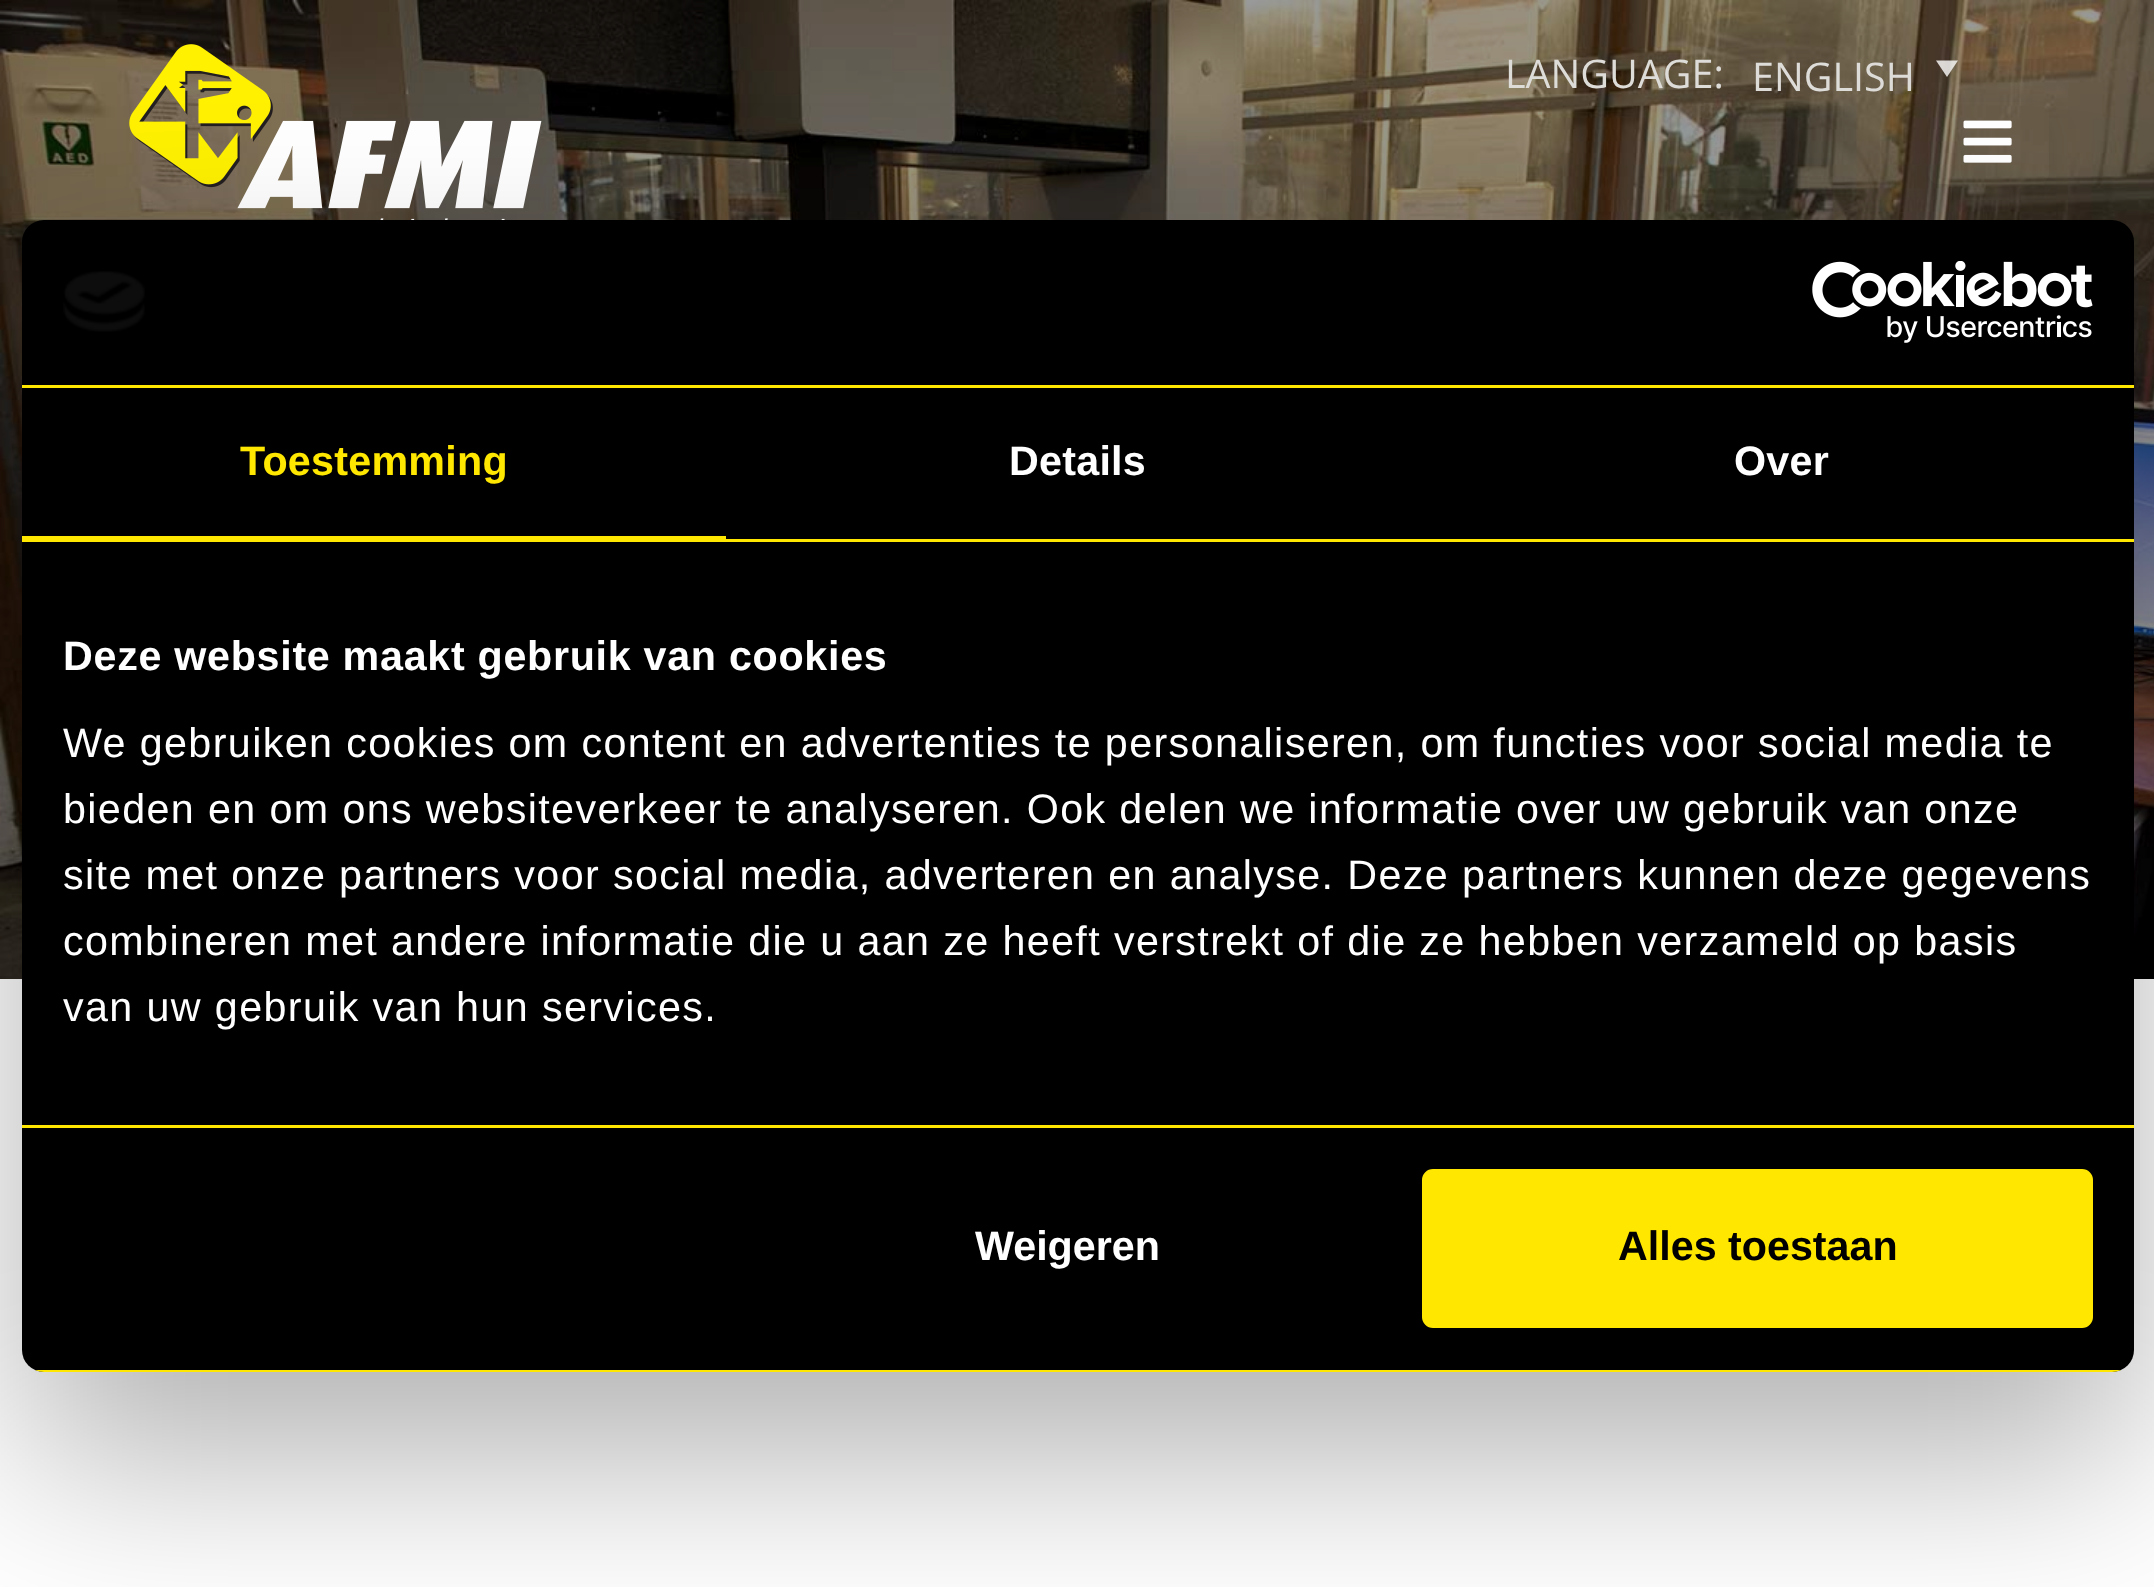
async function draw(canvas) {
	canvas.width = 2154;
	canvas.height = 1587;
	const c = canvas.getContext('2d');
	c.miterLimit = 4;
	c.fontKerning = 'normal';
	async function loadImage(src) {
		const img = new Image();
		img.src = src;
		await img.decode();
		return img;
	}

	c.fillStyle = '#fff';
	c.fillRect(0, 0, 2154, 1587);
	c.drawImage(await loadImage('img1.png'), 0, 0, 2154, 979);
	c.drawImage(await loadImage('img2.png'), 129, 44, 413, 176);
	c.font = '39.5px Open Sans';
	c.fillStyle = '#dedcd8';
	c.fillText('LANGUAGE:', 1505, 88);
	c.save();
	c.beginPath();
	c.moveTo(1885, 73);
	c.lineTo(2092, 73);
	c.lineTo(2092, 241);
	c.lineTo(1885, 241);
	c.closePath();
	c.moveTo(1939, 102);
	c.lineTo(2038, 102);
	c.bezierCurveTo(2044, 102, 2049, 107, 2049, 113);
	c.lineTo(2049, 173);
	c.bezierCurveTo(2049, 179, 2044, 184, 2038, 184);
	c.lineTo(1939, 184);
	c.bezierCurveTo(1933, 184, 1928, 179, 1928, 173);
	c.lineTo(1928, 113);
	c.bezierCurveTo(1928, 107, 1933, 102, 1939, 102);
	c.closePath();
	c.clip('evenodd');
	c.fillStyle = '#0000001a';
	c.filter = 'blur(14px)';
	c.beginPath();
	c.roundRect(1928, 116, 121, 82, 11);
	c.fill();
	c.filter = 'none';
	c.restore();
	c.fillText('ENGLISH', 1752, 91);
	c.fillStyle = '#ffffffcc';
	c.beginPath();
	c.moveTo(1936, 60.5);
	c.lineTo(1958, 60.5);
	c.lineTo(1947, 77);
	c.closePath();
	c.fill();
	c.drawImage(await loadImage('img3.png'), 1963, 120, 49, 43);
	c.fillStyle = '#0000004d';
	c.filter = 'blur(93.5px)';
	c.beginPath();
	c.roundRect(22, 308, 2112, 1152, 22);
	c.fill();
	c.filter = 'none';
	c.fillStyle = '#000';
	c.beginPath();
	c.roundRect(22, 220, 2112, 1152, 22);
	c.fill();
	c.fillStyle = '#ffe700';
	c.fillRect(22, 385, 2112, 3);
	c.drawImage(await loadImage('img4.png'), 63, 271, 82, 61);
	c.drawImage(await loadImage('img5.png'), 1812, 261, 281, 82);
	c.fillRect(22, 539, 2112, 3);
	c.fillRect(22, 536, 704, 3);
	c.letterSpacing = '0.25px';
	c.font = 'bold 41.25px Liberation Sans';
	c.fillText('Toestemming', 240, 475);
	c.fillStyle = '#fff';
	c.fillText('Details', 1009, 475);
	c.fillText('Over', 1734, 475);
	c.fillStyle = '#ffe700';
	c.fillRect(22, 1125, 2112, 3);
	c.letterSpacing = '0.7px';
	c.fillStyle = '#fff';
	c.fillText('Deze website maakt gebruik van cookies', 63, 670);
	c.letterSpacing = '1.38px';
	c.font = '41.25px Liberation Sans';
	for (const [text, x, y] of [
		['We gebruiken cookies om content en advertenties te personaliseren, om functies voor social media te', 63, 757],
		['bieden en om ons websiteverkeer te analyseren. Ook delen we informatie over uw gebruik van onze', 63, 823],
		['site met onze partners voor social media, adverteren en analyse. Deze partners kunnen deze gegevens', 63, 889],
		['combineren met andere informatie die u aan ze heeft verstrekt of die ze hebben verzameld op basis', 63, 955],
		['van uw gebruik van hun services.', 63, 1021],
	]) {
		c.fillText(text, x, y);
	}
	c.save();
	c.beginPath();
	c.roundRect(22, 220, 2112, 1152, 22);
	c.clip();
	c.fillStyle = '#ffe700';
	c.fillRect(35, 1370, 2086, 2);
	c.restore();
	c.letterSpacing = '0px';
	c.font = 'bold 41.25px Liberation Sans';
	c.fillText('Weigeren', 975, 1260);
	c.fillStyle = '#ffe700';
	c.beginPath();
	c.roundRect(1425, 1172, 665, 153, 8);
	c.fill();
	c.strokeStyle = '#ffe700';
	c.lineWidth = 6;
	c.stroke();
	c.fillStyle = '#000';
	c.fillText('Alles toestaan', 1618, 1260);
}

draw(document.querySelector('canvas'));
